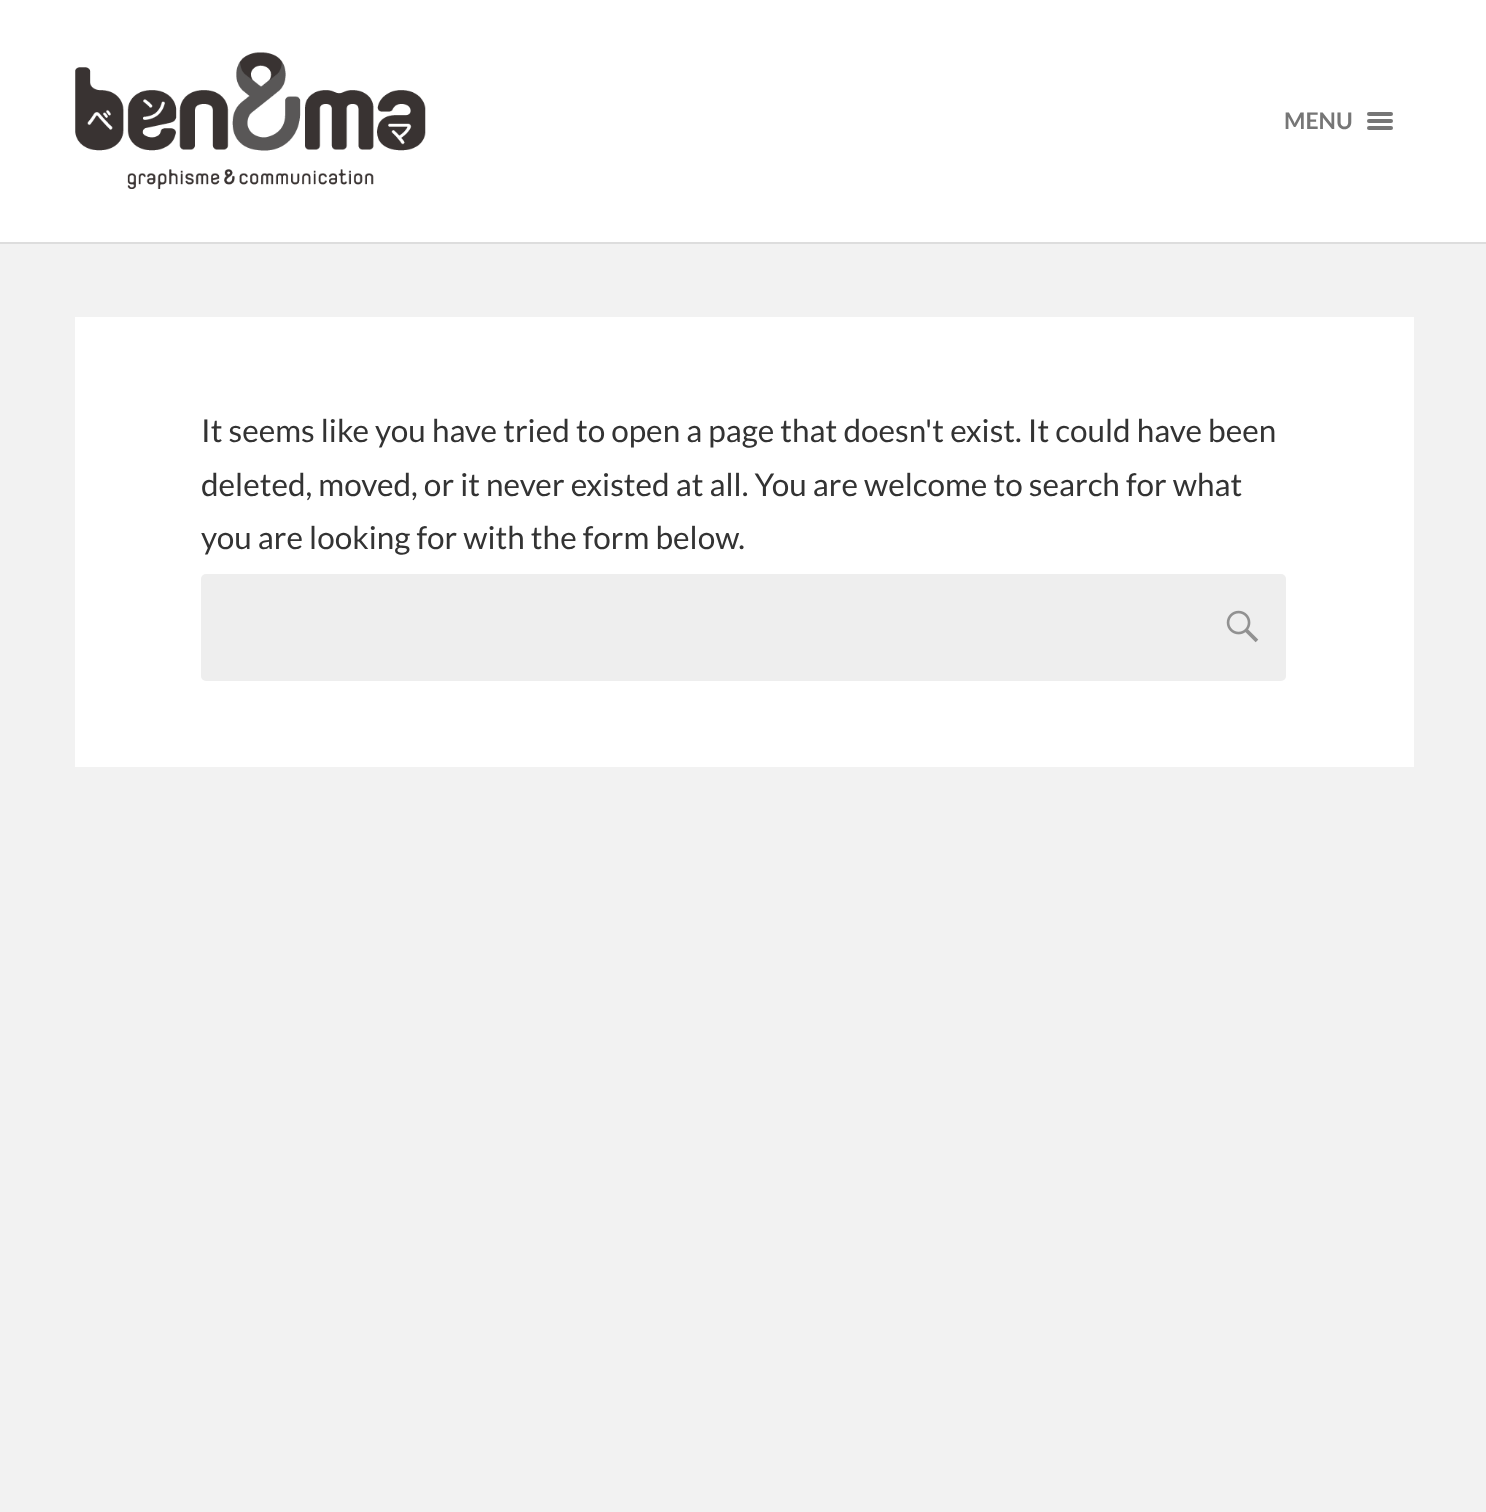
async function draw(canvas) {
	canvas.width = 1486;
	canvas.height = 1512;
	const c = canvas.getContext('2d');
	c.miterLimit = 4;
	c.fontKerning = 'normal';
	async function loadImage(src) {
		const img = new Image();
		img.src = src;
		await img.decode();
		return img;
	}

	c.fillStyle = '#f2f2f2';
	c.fillRect(0, 0, 1486, 1512);
	c.fillStyle = '#fff';
	c.fillRect(0, 0, 1486, 242);
	c.fillStyle = '#ddd';
	c.fillRect(0, 242, 1486, 2);
	c.drawImage(await loadImage('img1.png'), 75, 52, 351, 137);
	c.font = 'bold 23px Lato';
	c.fillStyle = '#767676';
	c.fillText('MENU', 1284, 129);
	c.beginPath();
	c.roundRect(1367, 112, 26, 4, 2);
	c.fill();
	c.beginPath();
	c.roundRect(1367, 119, 26, 4, 2);
	c.fill();
	c.beginPath();
	c.roundRect(1367, 126, 26, 4, 2);
	c.fill();
	c.fillStyle = '#fff';
	c.fillRect(75, 317, 1339, 450);
	c.font = '31.5px Lato';
	c.fillStyle = '#333';
	for (const [text, x, y] of [
		['It seems like you have tried to open a page that doesn\'t exist. It could have been', 201, 442],
		['deleted, moved, or it never existed at all. You are welcome to search for what', 201, 496],
		['you are looking for with the form below.', 201, 549],
	]) {
		c.fillText(text, x, y);
	}
	c.fillStyle = '#eee';
	c.beginPath();
	c.roundRect(201, 574, 1085, 107, 5);
	c.fill();
	c.drawImage(await loadImage('img2.png'), 1226, 610, 33, 33);
}

draw(document.querySelector('canvas'));
